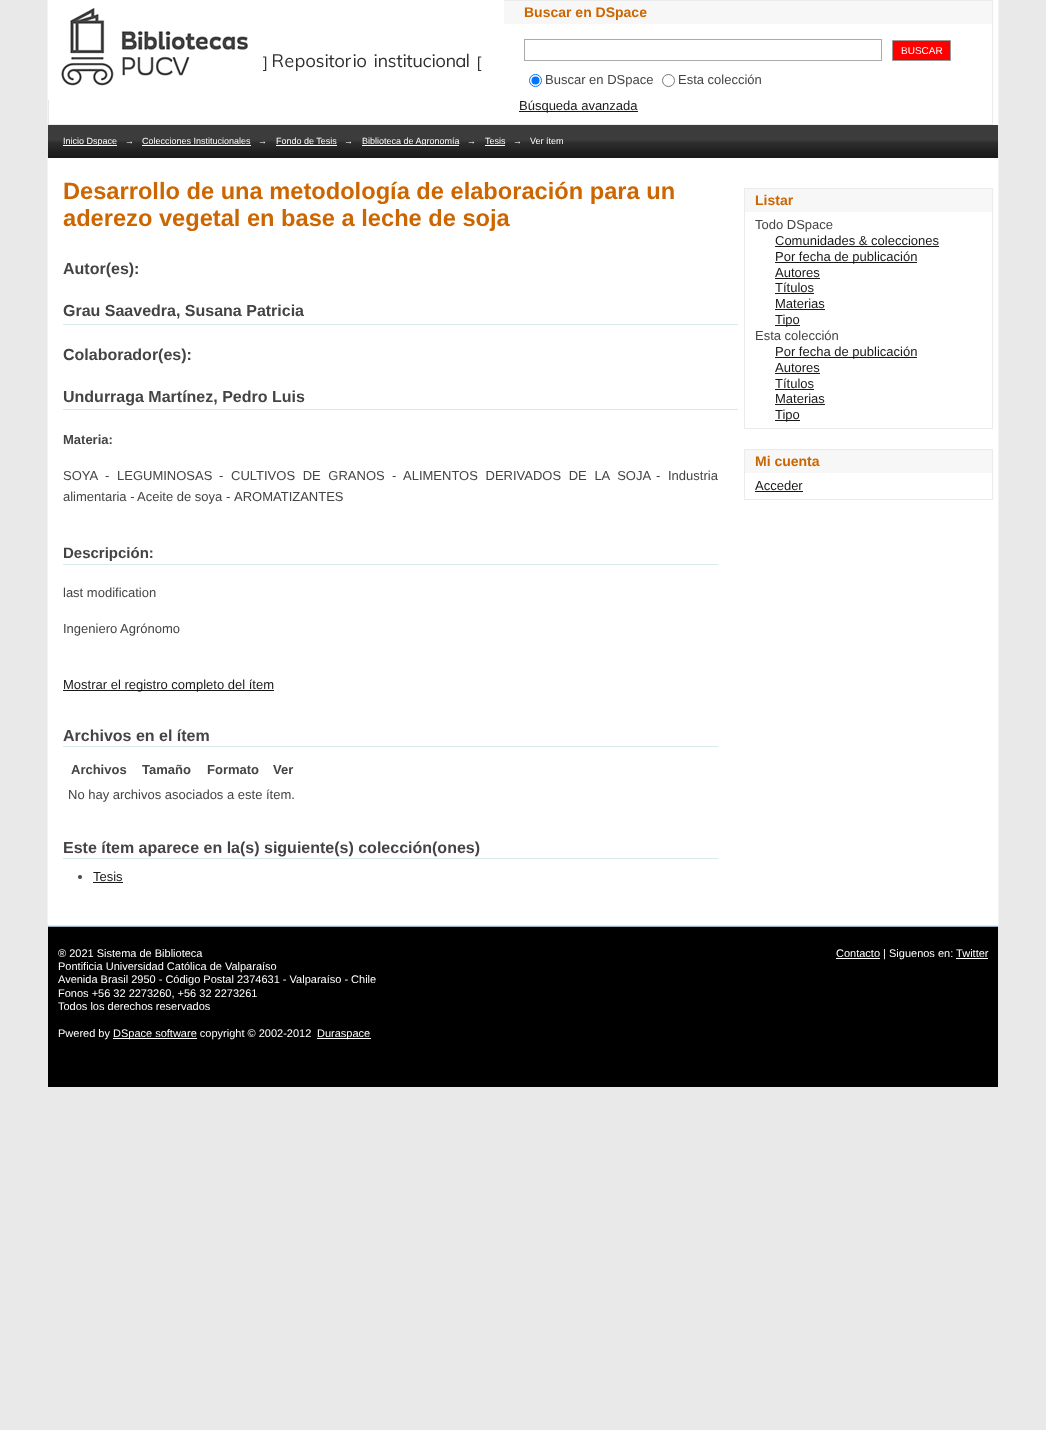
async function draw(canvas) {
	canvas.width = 1046;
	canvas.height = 1430;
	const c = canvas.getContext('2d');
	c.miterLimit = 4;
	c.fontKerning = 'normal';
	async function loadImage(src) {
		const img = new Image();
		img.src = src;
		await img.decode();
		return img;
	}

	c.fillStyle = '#e9e9e9';
	c.fillRect(0, 0, 1046, 1430);
	for (const [x, y, w, h, color] of [
		[49, 0, 949, 125, '#fff'],
		[998, 0, 1, 125, '#f3f3f3'],
		[47, 0, 1, 125, '#f3f3f3'],
	]) {
		c.fillStyle = color;
		c.fillRect(x, y, w, h);
	}
	c.drawImage(await loadImage('img1.png'), 48, 0, 456, 100);
	for (const [x, y, w, h, color] of [
		[504, 1, 488, 23, '#f7f7f7'],
		[504, 0, 489, 1, '#ebebeb'],
		[992, 0, 1, 125, '#ebebeb'],
	]) {
		c.fillStyle = color;
		c.fillRect(x, y, w, h);
	}
	c.font = 'bold 14px Liberation Sans';
	c.fillStyle = '#c60';
	c.fillText('Buscar en DSpace', 524, 17);
	c.fillStyle = '#ebebeb';
	c.fillRect(48, 124, 945, 1);
	c.strokeStyle = '#aaa';
	c.strokeRect(524.5, 39.5, 357, 21);
	c.fillStyle = '#f00';
	c.beginPath();
	c.rect(892.5, 40.5, 58, 20);
	c.fill();
	c.strokeStyle = '#999';
	c.stroke();
	c.font = '10px Liberation Sans';
	c.fillStyle = '#fff';
	c.fillText('BUSCAR', 901, 54);
	c.beginPath();
	c.arc(535.5, 80.5, 6, 0, 2 * Math.PI);
	c.strokeStyle = '#0075ff';
	c.stroke();
	c.fillStyle = '#0075ff';
	c.beginPath();
	c.arc(535.5, 80.5, 4, 0, 2 * Math.PI);
	c.fill();
	c.font = '13px Liberation Sans';
	c.fillStyle = '#444';
	c.fillText('Buscar en DSpace', 545, 84);
	c.beginPath();
	c.arc(668.5, 80.5, 6, 0, 2 * Math.PI);
	c.strokeStyle = '#767676';
	c.stroke();
	c.fillText('Esta colección', 678, 84);
	c.fillStyle = '#191919';
	c.fillRect(519, 111, 119, 1);
	c.fillText('Búsqueda avanzada', 519, 110);
	c.drawImage(await loadImage('img2.png'), 48, 125, 950, 33);
	c.fillStyle = '#fff';
	c.fillRect(63, 145, 54, 1);
	c.font = '9px Liberation Sans';
	for (const [text, x, y] of [
		['Inicio Dspace', 63, 144],
		['→', 125, 144],
		['Colecciones Institucionales', 142, 144],
	]) {
		c.fillText(text, x, y);
	}
	c.fillRect(142, 145, 109, 1);
	c.fillText('→', 258, 144);
	c.fillText('Fondo de Tesis', 276, 144);
	c.fillRect(276, 145, 61, 1);
	c.fillText('→', 344, 144);
	c.fillRect(362, 145, 97, 1);
	for (const [text, x, y] of [
		['Biblioteca de Agronomía', 362, 144],
		['→', 467, 144],
		['Tesis', 485, 144],
	]) {
		c.fillText(text, x, y);
	}
	c.fillRect(485, 145, 20, 1);
	c.fillText('→', 513, 144);
	c.fillText('Ver ítem', 530, 144);
	for (const [x, y, w, h, color] of [
		[48, 158, 950, 767, '#fff'],
		[998, 158, 1, 767, '#f3f3f3'],
		[47, 158, 1, 767, '#f3f3f3'],
	]) {
		c.fillStyle = color;
		c.fillRect(x, y, w, h);
	}
	c.font = 'bold 23.65px Liberation Sans';
	c.fillStyle = '#c60';
	c.fillText('Desarrollo de una metodología de elaboración para un', 63, 199);
	c.fillText('aderezo vegetal en base a leche de soja', 63, 226);
	c.fillStyle = '#d8e8eb';
	c.fillRect(63, 324, 675, 1);
	c.font = 'bold 16px Liberation Sans';
	c.fillStyle = '#444';
	c.fillText('Autor(es):', 63, 274);
	c.fillText('Grau Saavedra, Susana Patricia', 63, 316);
	c.fillStyle = '#d8e8eb';
	c.fillRect(63, 409, 675, 1);
	c.fillStyle = '#444';
	c.fillText('Colaborador(es):', 63, 360);
	c.fillText('Undurraga Martínez, Pedro Luis', 63, 402);
	c.font = 'bold 13px Liberation Sans';
	c.fillText('Materia:', 63, 444);
	c.font = '13px Liberation Sans';
	for (const [text, x, y] of [
		['SOYA', 63, 480],
		['-', 105, 480],
		['LEGUMINOSAS', 117, 480],
		['-', 219, 480],
	]) {
		c.fillText(text, x, y);
	}
	c.wordSpacing = '4px';
	c.fillText('CULTIVOS DE GRANOS', 231, 480);
	c.wordSpacing = '0px';
	c.fillText('-', 392, 480);
	c.wordSpacing = '4px';
	c.fillText('ALIMENTOS DERIVADOS DE LA SOJA', 403, 480);
	c.wordSpacing = '0px';
	for (const [text, x, y] of [
		['-', 656, 480],
		['Industria', 668, 480],
		['alimentaria -', 63, 501],
		['Aceite de soya -', 137, 501],
		['AROMATIZANTES', 234, 501],
	]) {
		c.fillText(text, x, y);
	}
	c.fillStyle = '#d8e8eb';
	c.fillRect(63, 564, 655, 1);
	c.font = 'bold 15px Liberation Sans';
	c.fillStyle = '#444';
	c.fillText('Descripción:', 63, 558);
	c.font = '13px Liberation Sans';
	c.fillText('last modification', 63, 597);
	c.fillText('Ingeniero Agrónomo', 63, 633);
	c.fillStyle = '#191919';
	c.fillRect(63, 690, 211, 1);
	c.fillText('Mostrar el registro completo del ítem', 63, 689);
	c.fillStyle = '#d8e8eb';
	c.fillRect(63, 746, 655, 1);
	c.font = 'bold 16px Liberation Sans';
	c.fillStyle = '#444';
	c.fillText('Archivos en el ítem', 63, 741);
	c.font = 'bold 13px Liberation Sans';
	for (const [text, x, y] of [
		['Archivos', 71, 774],
		['Tamaño', 142, 774],
		['Formato', 207, 774],
		['Ver', 273, 774],
	]) {
		c.fillText(text, x, y);
	}
	c.font = '13px Liberation Sans';
	c.fillText('No hay archivos asociados a este ítem.', 68, 799);
	c.fillStyle = '#d8e8eb';
	c.fillRect(63, 858, 655, 1);
	c.font = 'bold 16px Liberation Sans';
	c.fillStyle = '#444';
	c.fillText('Este ítem aparece en la(s) siguiente(s) colección(ones)', 63, 853);
	c.beginPath();
	c.arc(80, 877, 2, 0, 2 * Math.PI);
	c.fill();
	c.font = '13px Liberation Sans';
	c.fillStyle = '#191919';
	c.fillText('Tesis', 93, 881);
	for (const [x, y, w, h, color] of [
		[93, 882, 30, 1, '#191919'],
		[745, 189, 247, 23, '#f7f7f7'],
		[744, 188, 249, 1, '#ebebeb'],
		[992, 188, 1, 241, '#ebebeb'],
		[744, 188, 1, 24, '#ebebeb'],
	]) {
		c.fillStyle = color;
		c.fillRect(x, y, w, h);
	}
	c.font = 'bold 14px Liberation Sans';
	c.fillStyle = '#c60';
	c.fillText('Listar', 755, 205);
	c.fillStyle = '#ebebeb';
	c.fillRect(744, 428, 249, 1);
	c.fillRect(744, 212, 1, 217);
	c.font = '13px Liberation Sans';
	c.fillStyle = '#444';
	c.fillText('Todo DSpace', 755, 229);
	c.fillStyle = '#191919';
	c.fillText('Comunidades & colecciones', 775, 245);
	c.fillRect(775, 246, 164, 1);
	c.fillRect(775, 262, 142, 1);
	c.fillText('Por fecha de publicación', 775, 261);
	c.fillText('Autores', 775, 277);
	c.fillRect(775, 278, 45, 1);
	c.fillText('Títulos', 775, 292);
	c.fillRect(775, 293, 39, 1);
	c.fillText('Materias', 775, 308);
	c.fillRect(775, 309, 50, 1);
	c.fillRect(775, 325, 25, 1);
	c.fillText('Tipo', 775, 324);
	c.fillStyle = '#444';
	c.fillText('Esta colección', 755, 340);
	c.fillStyle = '#191919';
	c.fillRect(775, 357, 142, 1);
	c.fillText('Por fecha de publicación', 775, 356);
	c.fillText('Autores', 775, 372);
	c.fillRect(775, 373, 45, 1);
	c.fillText('Títulos', 775, 388);
	c.fillRect(775, 389, 39, 1);
	c.fillText('Materias', 775, 403);
	c.fillRect(775, 404, 50, 1);
	c.fillRect(775, 420, 25, 1);
	c.fillText('Tipo', 775, 419);
	for (const [x, y, w, h, color] of [
		[745, 450, 247, 23, '#f7f7f7'],
		[744, 449, 249, 1, '#ebebeb'],
		[992, 449, 1, 51, '#ebebeb'],
		[744, 449, 1, 24, '#ebebeb'],
	]) {
		c.fillStyle = color;
		c.fillRect(x, y, w, h);
	}
	c.font = 'bold 14px Liberation Sans';
	c.fillStyle = '#c60';
	c.fillText('Mi cuenta', 755, 466);
	c.fillStyle = '#ebebeb';
	c.fillRect(744, 499, 249, 1);
	c.fillRect(744, 473, 1, 27);
	c.font = '13px Liberation Sans';
	c.fillStyle = '#191919';
	c.fillText('Acceder', 755, 490);
	for (const [x, y, w, h, color] of [
		[755, 491, 48, 1, '#191919'],
		[48, 927, 950, 160, '#000'],
		[48, 926, 950, 1, '#9cacba'],
	]) {
		c.fillStyle = color;
		c.fillRect(x, y, w, h);
	}
	c.font = '11px Liberation Sans';
	c.fillStyle = '#fff';
	for (const [text, x, y] of [
		['® 2021 Sistema de Biblioteca', 58, 957],
		['Pontificia Universidad Católica de Valparaíso', 58, 970],
		['Avenida Brasil 2950 - Código Postal 2374631 - Valparaíso - Chile', 58, 983],
		['Fonos +56 32 2273260, +56 32 2273261', 58, 997],
		['Todos los derechos reservados', 58, 1010],
		['Pwered by', 58, 1037],
	]) {
		c.fillText(text, x, y);
	}
	c.fillRect(113, 1038, 84, 1);
	c.fillText('DSpace software copyright © 2002-2012', 113, 1037);
	c.fillRect(317, 1038, 54, 1);
	c.fillText('Duraspace', 317, 1037);
	c.fillRect(836, 958, 44, 1);
	c.fillText('Contacto | Siguenos en: Twitter', 836, 957);
	c.fillRect(956, 958, 32, 1);
}

draw(document.querySelector('canvas'));
